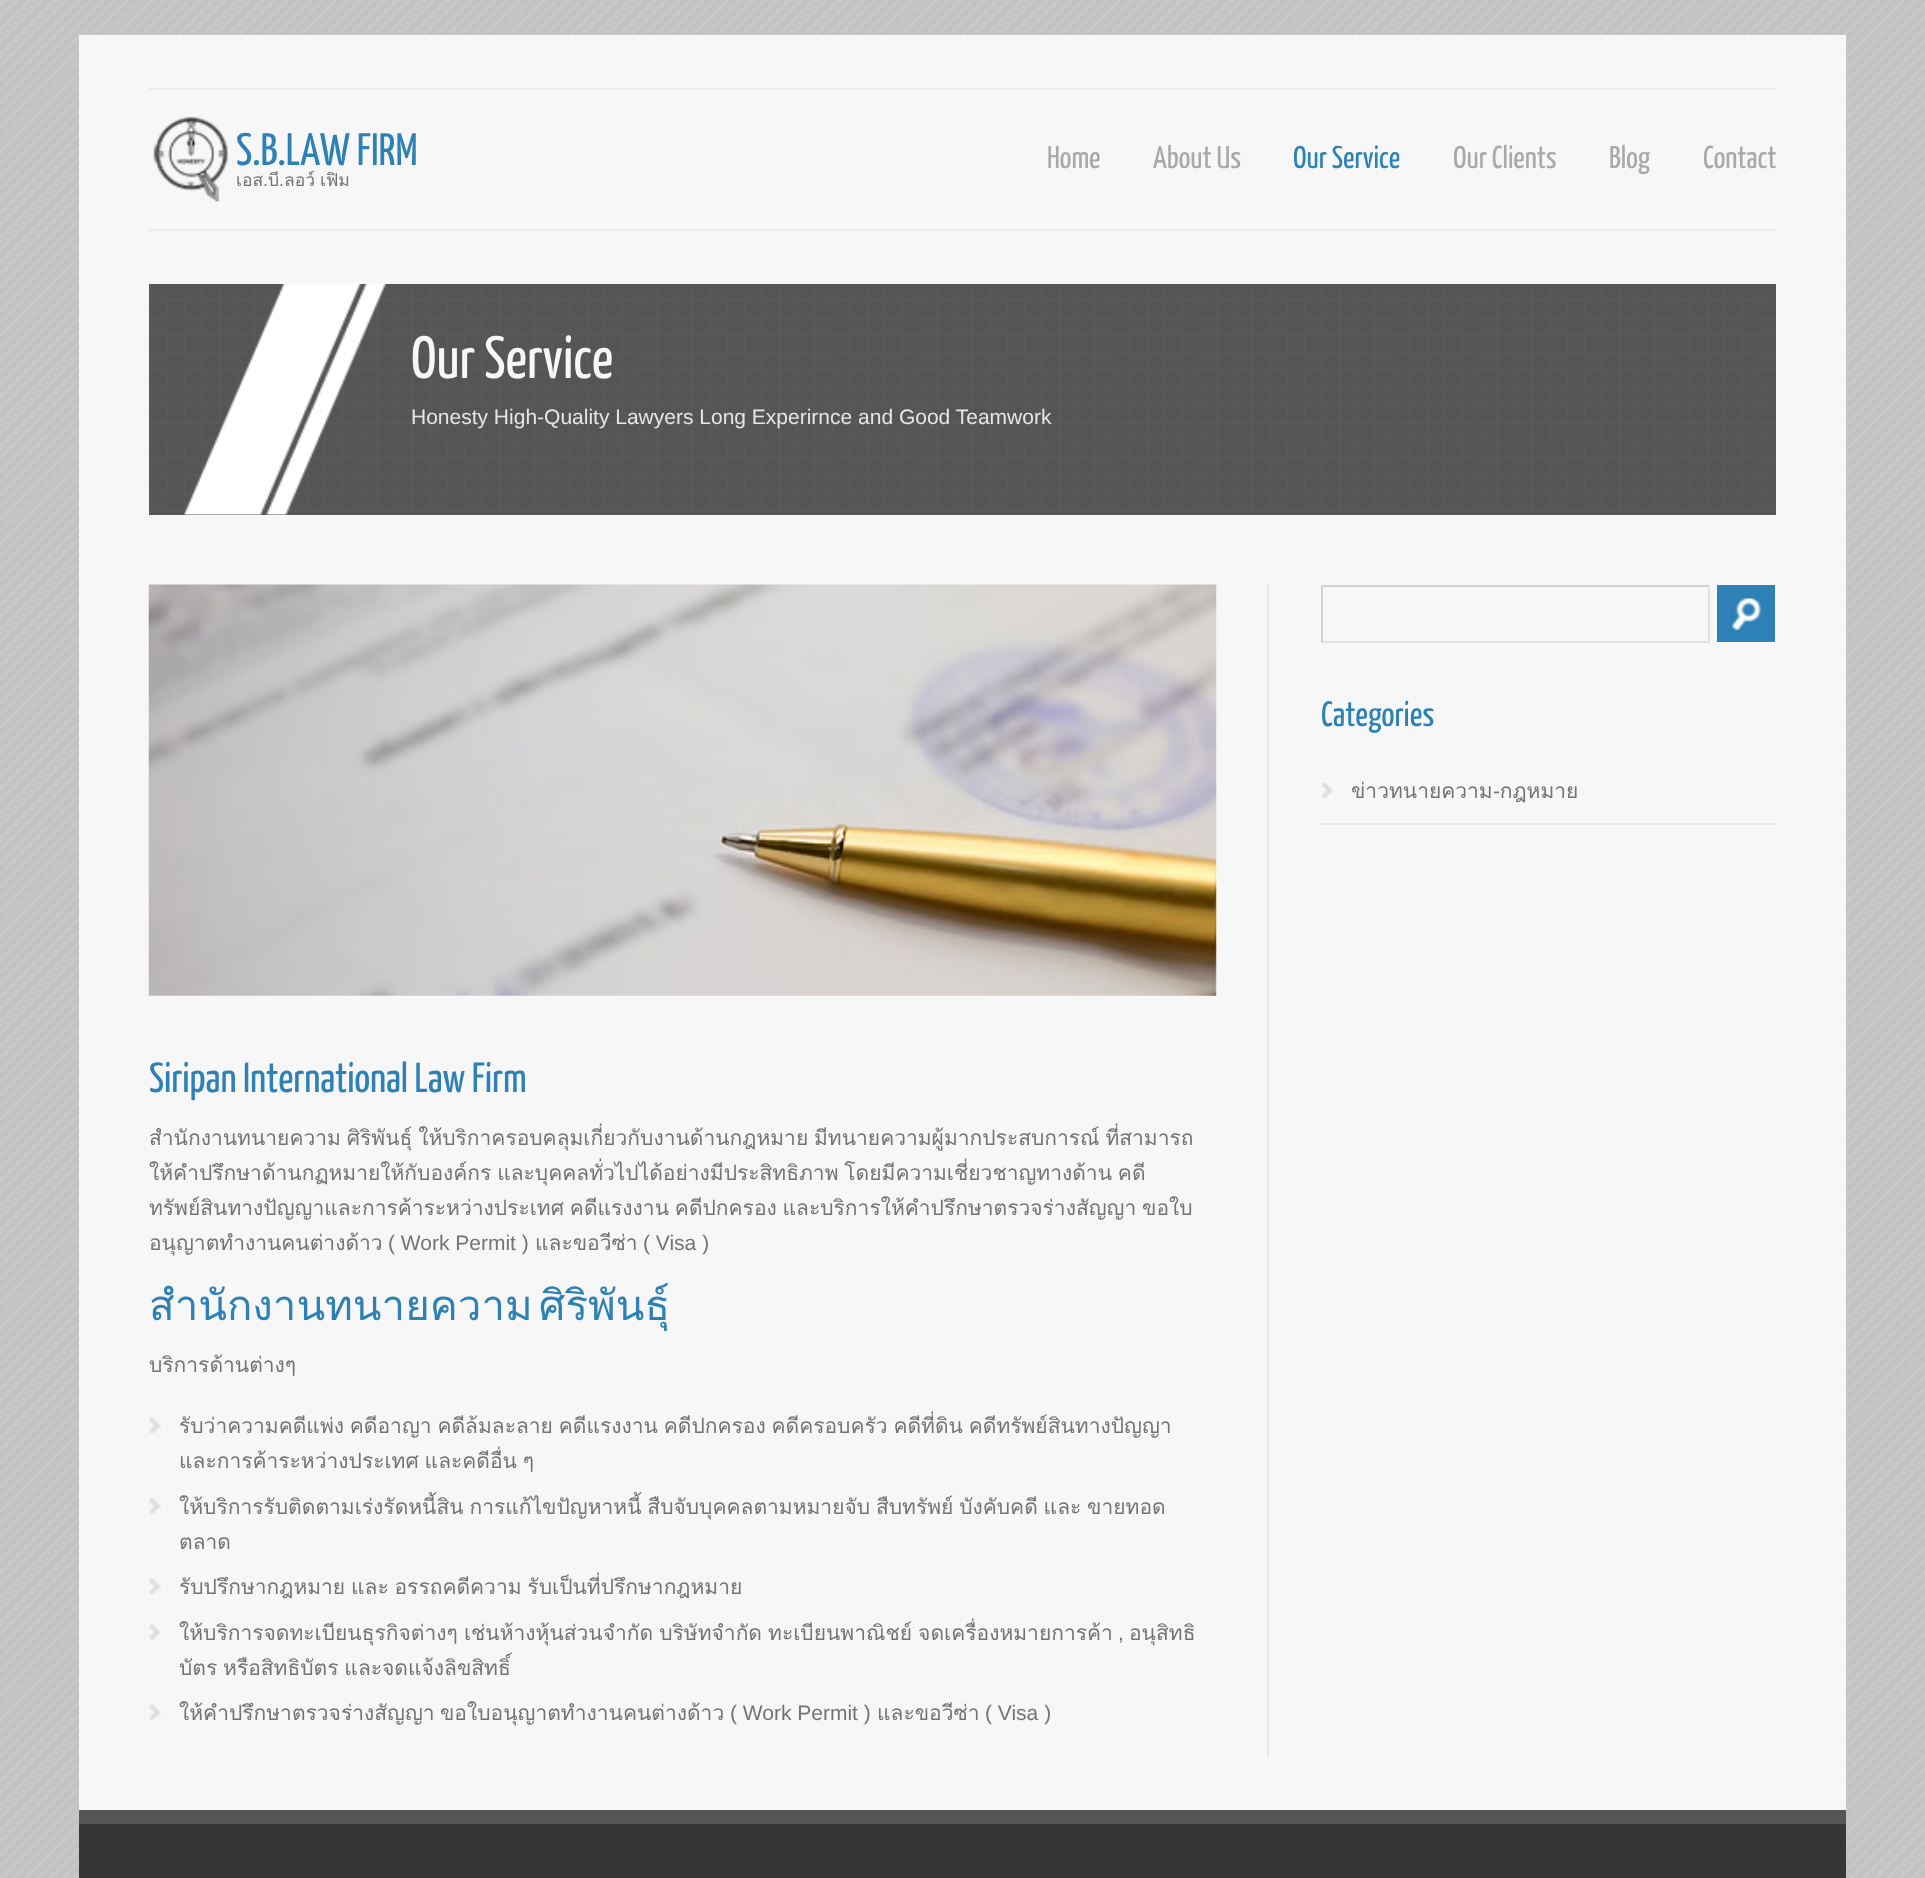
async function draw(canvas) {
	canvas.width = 1925;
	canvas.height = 1878;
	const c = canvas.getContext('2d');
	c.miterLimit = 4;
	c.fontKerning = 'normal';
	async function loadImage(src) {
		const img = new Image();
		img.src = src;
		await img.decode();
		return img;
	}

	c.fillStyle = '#c3c3c3';
	c.fillRect(0, 0, 1925, 1878);
	c.drawImage(await loadImage('img1.png'), 0, 0, 1925, 1878);
	for (const [x, y, w, h, color] of [
		[79, 35, 1767, 1775, '#f7f7f7'],
		[149, 88, 1627, 2, '#ebebeb'],
		[149, 229, 1627, 2, '#ebebeb'],
	]) {
		c.fillStyle = color;
		c.fillRect(x, y, w, h);
	}
	c.drawImage(await loadImage('img2.png'), 153, 116, 75, 86);
	c.font = '45.5px Yanone Kaffeesatz';
	c.fillStyle = '#2d81b6';
	c.fillText('S.B.LAW FIRM', 236, 165);
	c.font = '17.5px Loma';
	c.fillStyle = '#747474';
	c.fillText('เอส', 236, 186);
	c.font = '17.5px Liberation Sans';
	c.fillText('.', 263, 186);
	c.font = '17.5px Loma';
	c.fillText('บี', 268, 186);
	c.wordSpacing = '-1px';
	c.fillText('ลอว์ เฟิม', 284, 186);
	c.wordSpacing = '0px';
	c.font = '17.5px Liberation Sans';
	c.fillText('.', 279, 186);
	c.font = '31.5px Yanone Kaffeesatz';
	c.fillStyle = '#a9a9a9';
	c.fillText('Home', 1047, 168);
	c.fillText('About Us', 1153, 168);
	c.fillStyle = '#2d81b6';
	c.fillText('Our Service', 1293, 168);
	c.fillStyle = '#a9a9a9';
	for (const [text, x, y] of [
		['Our Clients', 1453, 168],
		['Blog', 1609, 168],
		['Contact', 1703, 168],
	]) {
		c.fillText(text, x, y);
	}
	c.fillStyle = '#555';
	c.fillRect(149, 284, 1627, 231);
	c.drawImage(await loadImage('img3.png'), 149, 284, 1627, 230);
	c.drawImage(await loadImage('img4.png'), 183, 283, 204, 232);
	c.font = '59.5px Yanone Kaffeesatz';
	c.fillStyle = '#f7f7f7';
	c.fillText('Our Service', 411, 378);
	c.font = '21px Liberation Sans';
	c.fillStyle = '#e5e5e5';
	c.fillText('Honesty High-Quality Lawyers Long Experirnce and Good Teamwork', 411, 424);
	for (const [x, y, w, h, color] of [
		[1321, 585, 389, 2, '#d1d1d1'],
		[1708, 585, 2, 57, '#e1e1e1'],
		[1321, 641, 389, 2, '#e1e1e1'],
		[1321, 585, 2, 57, '#d1d1d1'],
		[1717, 585, 58, 57, '#2d81b6'],
	]) {
		c.fillStyle = color;
		c.fillRect(x, y, w, h);
	}
	c.drawImage(await loadImage('img5.png'), 1732, 598, 29, 32);
	c.font = '35px Yanone Kaffeesatz';
	c.fillText('Categories', 1321, 726);
	c.drawImage(await loadImage('img6.png'), 1321, 782, 13, 16);
	c.fillStyle = '#e7e7e7';
	c.fillRect(1321, 823, 454, 2);
	c.font = '21px Loma';
	c.fillStyle = '#747474';
	c.fillText('ข่าวทนายความ กฎหมาย', 1351, 798);
	c.font = '21px Liberation Sans';
	c.fillText('-', 1493, 798);
	c.fillStyle = '#e7e7e7';
	c.fillRect(1267, 585, 2, 1172);
	c.drawImage(await loadImage('img7.png'), 148, 584, 1069, 412);
	c.font = '42px Yanone Kaffeesatz';
	c.fillStyle = '#2d81b6';
	c.fillText('Siripan International Law Firm', 149, 1092);
	c.wordSpacing = '-1.25px';
	c.font = '21px Loma';
	c.fillStyle = '#747474';
	for (const [text, x, y] of [
		['สำนักงานทนายความ ศิริพันธุ์ ให้บริกาครอบคลุมเกี่ยวกับงานด้านกฎหมาย มีทนายความผู้มากประสบการณ์ ที่สามารถ', 149, 1145],
		['ให้คำปรึกษาด้านกฏหมายให้กับองค์กร และบุคคลทั่วไปได้อย่างมีประสิทธิภาพ โดยมีความเชี่ยวชาญทางด้าน คดี', 149, 1180],
		['ทรัพย์สินทางปัญญาและการค้าระหว่างประเทศ คดีแรงงาน คดีปกครอง และบริการให้คำปรึกษาตรวจร่างสัญญา ขอใบ', 149, 1215],
	]) {
		c.fillText(text, x, y);
	}
	c.wordSpacing = '0px';
	c.fillText('อนุญาตทำงานคนต่างด้าว', 149, 1250);
	c.font = '21px Liberation Sans';
	c.fillText('( Work Permit )', 388, 1250);
	c.font = '21px Loma';
	c.fillText('และขอวีซ่า', 535, 1250);
	c.font = '21px Liberation Sans';
	c.fillText('( Visa )', 643, 1250);
	c.wordSpacing = '-8px';
	c.font = '42px Loma';
	c.fillStyle = '#2d81b6';
	c.fillText('สำนักงานทนายความ ศิริพันธุ์', 149, 1320);
	c.wordSpacing = '0px';
	c.font = '21px Loma';
	c.fillStyle = '#747474';
	c.fillText('บริการด้านต่างๆ', 149, 1372);
	c.drawImage(await loadImage('img8.png'), 149, 1417, 12, 17);
	c.wordSpacing = '-1.25px';
	c.fillText('รับว่าความคดีแพ่ง คดีอาญา คดีล้มละลาย คดีแรงงาน คดีปกครอง คดีครอบครัว คดีที่ดิน คดีทรัพย์สินทางปัญญา', 179, 1433);
	c.fillText('และการค้าระหว่างประเทศ และคดีอื่น ๆ', 179, 1468);
	c.drawImage(await loadImage('img9.png'), 149, 1498, 12, 16);
	c.fillText('ให้บริการรับติดตามเร่งรัดหนี้สิน การแก้ไขปัญหาหนี้ สืบจับบุคคลตามหมายจับ สืบทรัพย์ บังคับคดี และ ขายทอด', 179, 1514);
	c.wordSpacing = '0px';
	c.fillText('ตลาด', 179, 1549);
	c.drawImage(await loadImage('img8.png'), 149, 1578, 12, 17);
	c.wordSpacing = '-1.25px';
	c.fillText('รับปรึกษากฎหมาย และ อรรถคดีความ รับเป็นที่ปรึกษากฎหมาย', 179, 1594);
	c.drawImage(await loadImage('img9.png'), 149, 1624, 12, 16);
	c.wordSpacing = '-1px';
	c.fillText('ให้บริการจดทะเบียนธุรกิจต่างๆ เช่นห้างหุ้นส่วนจำกัด บริษัทจำกัด ทะเบียนพาณิชย์ จดเครื่องหมายการค้า', 179, 1640);
	c.wordSpacing = '0px';
	c.font = '21px Liberation Sans';
	c.fillText(',', 1118, 1640);
	c.font = '21px Loma';
	c.fillText('อนุสิทธิ', 1129, 1640);
	c.wordSpacing = '-1.25px';
	c.fillText('บัตร หรือสิทธิบัตร และจดแจ้งลิขสิทธิ์', 179, 1675);
	c.drawImage(await loadImage('img8.png'), 149, 1704, 12, 17);
	c.wordSpacing = '0px';
	c.fillText('ให้คำปรึกษาตรวจร่างสัญญา', 179, 1720);
	c.fillText('ขอใบอนุญาตทำงานคนต่างด้าว', 440, 1720);
	c.font = '21px Liberation Sans';
	c.fillText('( Work Permit )', 730, 1720);
	c.font = '21px Loma';
	c.fillText('และขอวีซ่า', 877, 1720);
	c.font = '21px Liberation Sans';
	c.fillText('( Visa )', 985, 1720);
	c.fillStyle = '#363636';
	c.fillRect(79, 1824, 1767, 54);
	c.fillStyle = '#565656';
	c.fillRect(79, 1810, 1767, 14);
}

draw(document.querySelector('canvas'));
